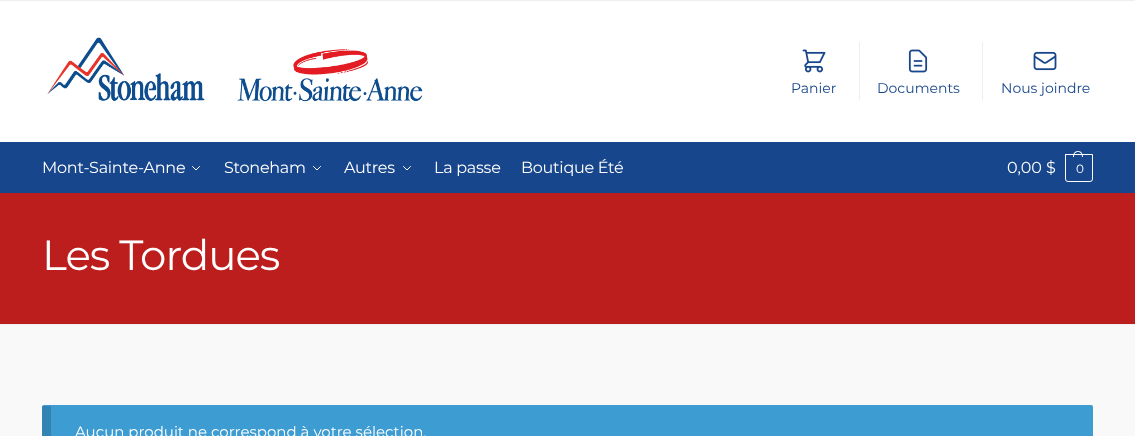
async function draw(canvas) {
	canvas.width = 1135;
	canvas.height = 436;
	const c = canvas.getContext('2d');
	c.miterLimit = 4;
	c.fontKerning = 'normal';
	async function loadImage(src) {
		const img = new Image();
		img.src = src;
		await img.decode();
		return img;
	}

	c.fillStyle = '#f9f9f9';
	c.fillRect(0, 0, 1135, 436);
	c.fillStyle = '#eee';
	c.fillRect(0, 0, 1135, 1);
	c.fillStyle = '#fff';
	c.fillRect(0, 1, 1135, 141);
	c.drawImage(await loadImage('img1.png'), 47, 37, 376, 65);
	c.drawImage(await loadImage('img2.png'), 802, 49, 24, 24);
	c.font = '14px Montserrat';
	c.fillStyle = '#18468d';
	c.fillText('Panier', 791, 93);
	c.fillStyle = '#eee';
	c.fillRect(859, 42, 1, 58);
	c.drawImage(await loadImage('img3.png'), 908, 49, 20, 24);
	c.fillStyle = '#18468d';
	c.fillText('Documents', 877, 93);
	c.fillStyle = '#eee';
	c.fillRect(982, 42, 1, 58);
	c.drawImage(await loadImage('img4.png'), 1033, 51, 24, 20);
	c.fillStyle = '#18468d';
	c.fillText('Nous joindre', 1001, 93);
	c.fillRect(0, 142, 1135, 51);
	c.letterSpacing = '-0.25px';
	c.font = '16px Montserrat';
	c.fillStyle = '#fff';
	c.fillText('Mont-Sainte-Anne', 42, 173);
	c.beginPath();
	c.moveTo(199.5, 166.5);
	c.lineTo(196, 170);
	c.lineTo(192.5, 166.5);
	c.strokeStyle = '#fff';
	c.lineCap = 'round';
	c.lineJoin = 'round';
	c.stroke();
	c.fillText('Stoneham', 224, 173);
	c.beginPath();
	c.moveTo(320.5, 166.5);
	c.lineTo(317, 170);
	c.lineTo(313.5, 166.5);
	c.stroke();
	c.fillText('Autres', 344, 173);
	c.beginPath();
	c.moveTo(410.5, 166.5);
	c.lineTo(407, 170);
	c.lineTo(403.5, 166.5);
	c.stroke();
	c.fillText('La passe', 434, 173);
	c.fillText('Boutique Été', 521, 173);
	c.letterSpacing = '0px';
	c.fillText('0,00 $', 1007, 173);
	c.beginPath();
	c.roundRect(1065.5, 154.5, 27, 27, [0, 0, 2.5, 2.5]);
	c.lineJoin = 'miter';
	c.stroke();
	c.beginPath();
	c.moveTo(1078, 151);
	c.bezierCurveTo(1081.5, 151, 1083, 154, 1083, 157);
	c.lineTo(1073, 157);
	c.bezierCurveTo(1073, 154, 1074.5, 151, 1078, 151);
	c.closePath();
	c.moveTo(1078, 152);
	c.bezierCurveTo(1081, 152, 1082, 154.5, 1082, 157);
	c.lineTo(1074, 157);
	c.bezierCurveTo(1074, 154.5, 1075, 152, 1078, 152);
	c.closePath();
	c.fill('evenodd');
	c.letterSpacing = '-1px';
	c.font = '12px Montserrat';
	c.fillText('0', 1076, 173);
	c.fillStyle = '#bc1d1d';
	c.fillRect(0, 193, 1135, 131);
	c.fillStyle = '#f1f1f1';
	c.fillRect(0, 324, 1135, 1);
	c.font = '42px Montserrat';
	c.fillStyle = '#fff';
	c.fillText('Les Tordues', 42, 270);
	c.fillStyle = '#3d9cd2';
	c.beginPath();
	c.roundRect(42, 405, 1051, 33, 2);
	c.fill();
	c.fillStyle = '#00000026';
	c.fillRect(42, 406, 9, 30);
	c.letterSpacing = '0px';
	c.font = '15px Montserrat';
	c.fillStyle = '#fff';
	c.fillText('Aucun produit ne correspond à votre sélection.', 75, 437);
}

draw(document.querySelector('canvas'));
